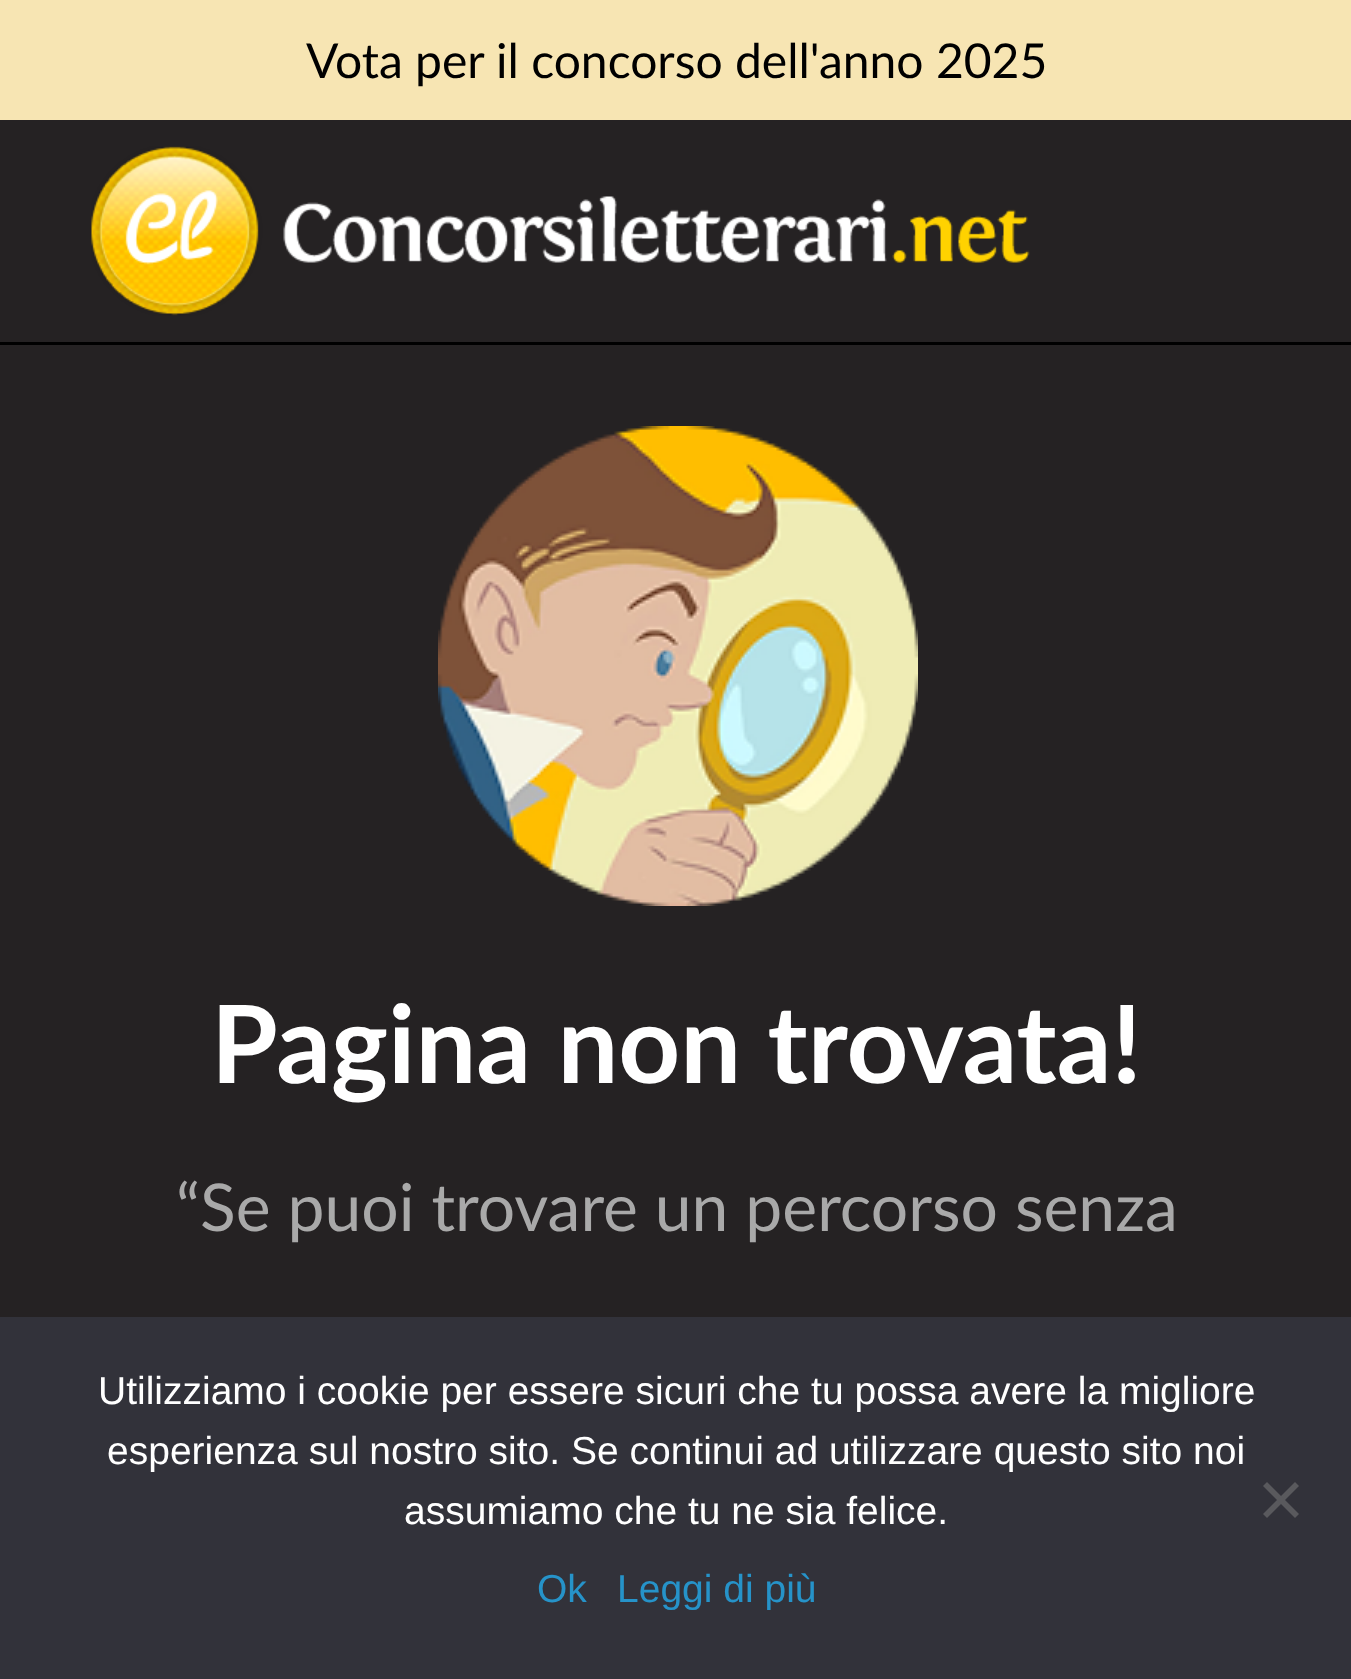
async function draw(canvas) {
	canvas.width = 1351;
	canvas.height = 1679;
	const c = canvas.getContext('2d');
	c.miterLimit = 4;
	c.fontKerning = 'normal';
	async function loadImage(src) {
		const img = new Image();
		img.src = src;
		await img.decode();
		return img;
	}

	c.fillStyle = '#252223';
	c.fillRect(0, 0, 1351, 1679);
	c.fillStyle = '#f7e5b3';
	c.fillRect(0, 0, 1351, 120);
	c.font = '48px Lato';
	c.fillStyle = '#000';
	c.fillText('Vota per il concorso dell\'anno 2025', 306, 78);
	c.fillRect(0, 342, 1351, 3);
	c.drawImage(await loadImage('img1.png'), 91, 146, 939, 170);
	c.drawImage(await loadImage('img2.png'), 438, 426, 480, 480);
	c.font = 'bold 108px Lato';
	c.fillStyle = '#fff';
	c.fillText('Pagina non trovata!', 211, 1083);
	c.font = '66px Lato';
	c.fillStyle = '#a9a9a9';
	c.fillText('“Se puoi trovare un percorso senza', 176, 1231);
	c.fillStyle = '#32323a';
	c.fillRect(0, 1317, 1351, 362);
	c.font = '39px Liberation Sans';
	c.fillStyle = '#fff';
	for (const [text, x, y] of [
		['Utilizziamo i cookie per essere sicuri che tu possa avere la migliore', 98, 1404],
		['esperienza sul nostro sito. Se continui ad utilizzare questo sito noi', 107, 1464],
		['assumiamo che tu ne sia felice.', 404, 1524],
	]) {
		c.fillText(text, x, y);
	}
	c.fillStyle = '#59595d';
	c.beginPath();
	c.moveTo(1295, 1482);
	c.lineTo(1299, 1486);
	c.lineTo(1267, 1518);
	c.lineTo(1263, 1514);
	c.closePath();
	c.fill();
	c.beginPath();
	c.moveTo(1263, 1486);
	c.lineTo(1267, 1482);
	c.lineTo(1299, 1514);
	c.lineTo(1295, 1518);
	c.closePath();
	c.fill();
	c.fillStyle = '#2693c9';
	c.fillText('Ok', 537, 1602);
	c.fillText('Leggi di più', 617, 1602);
}

draw(document.querySelector('canvas'));
